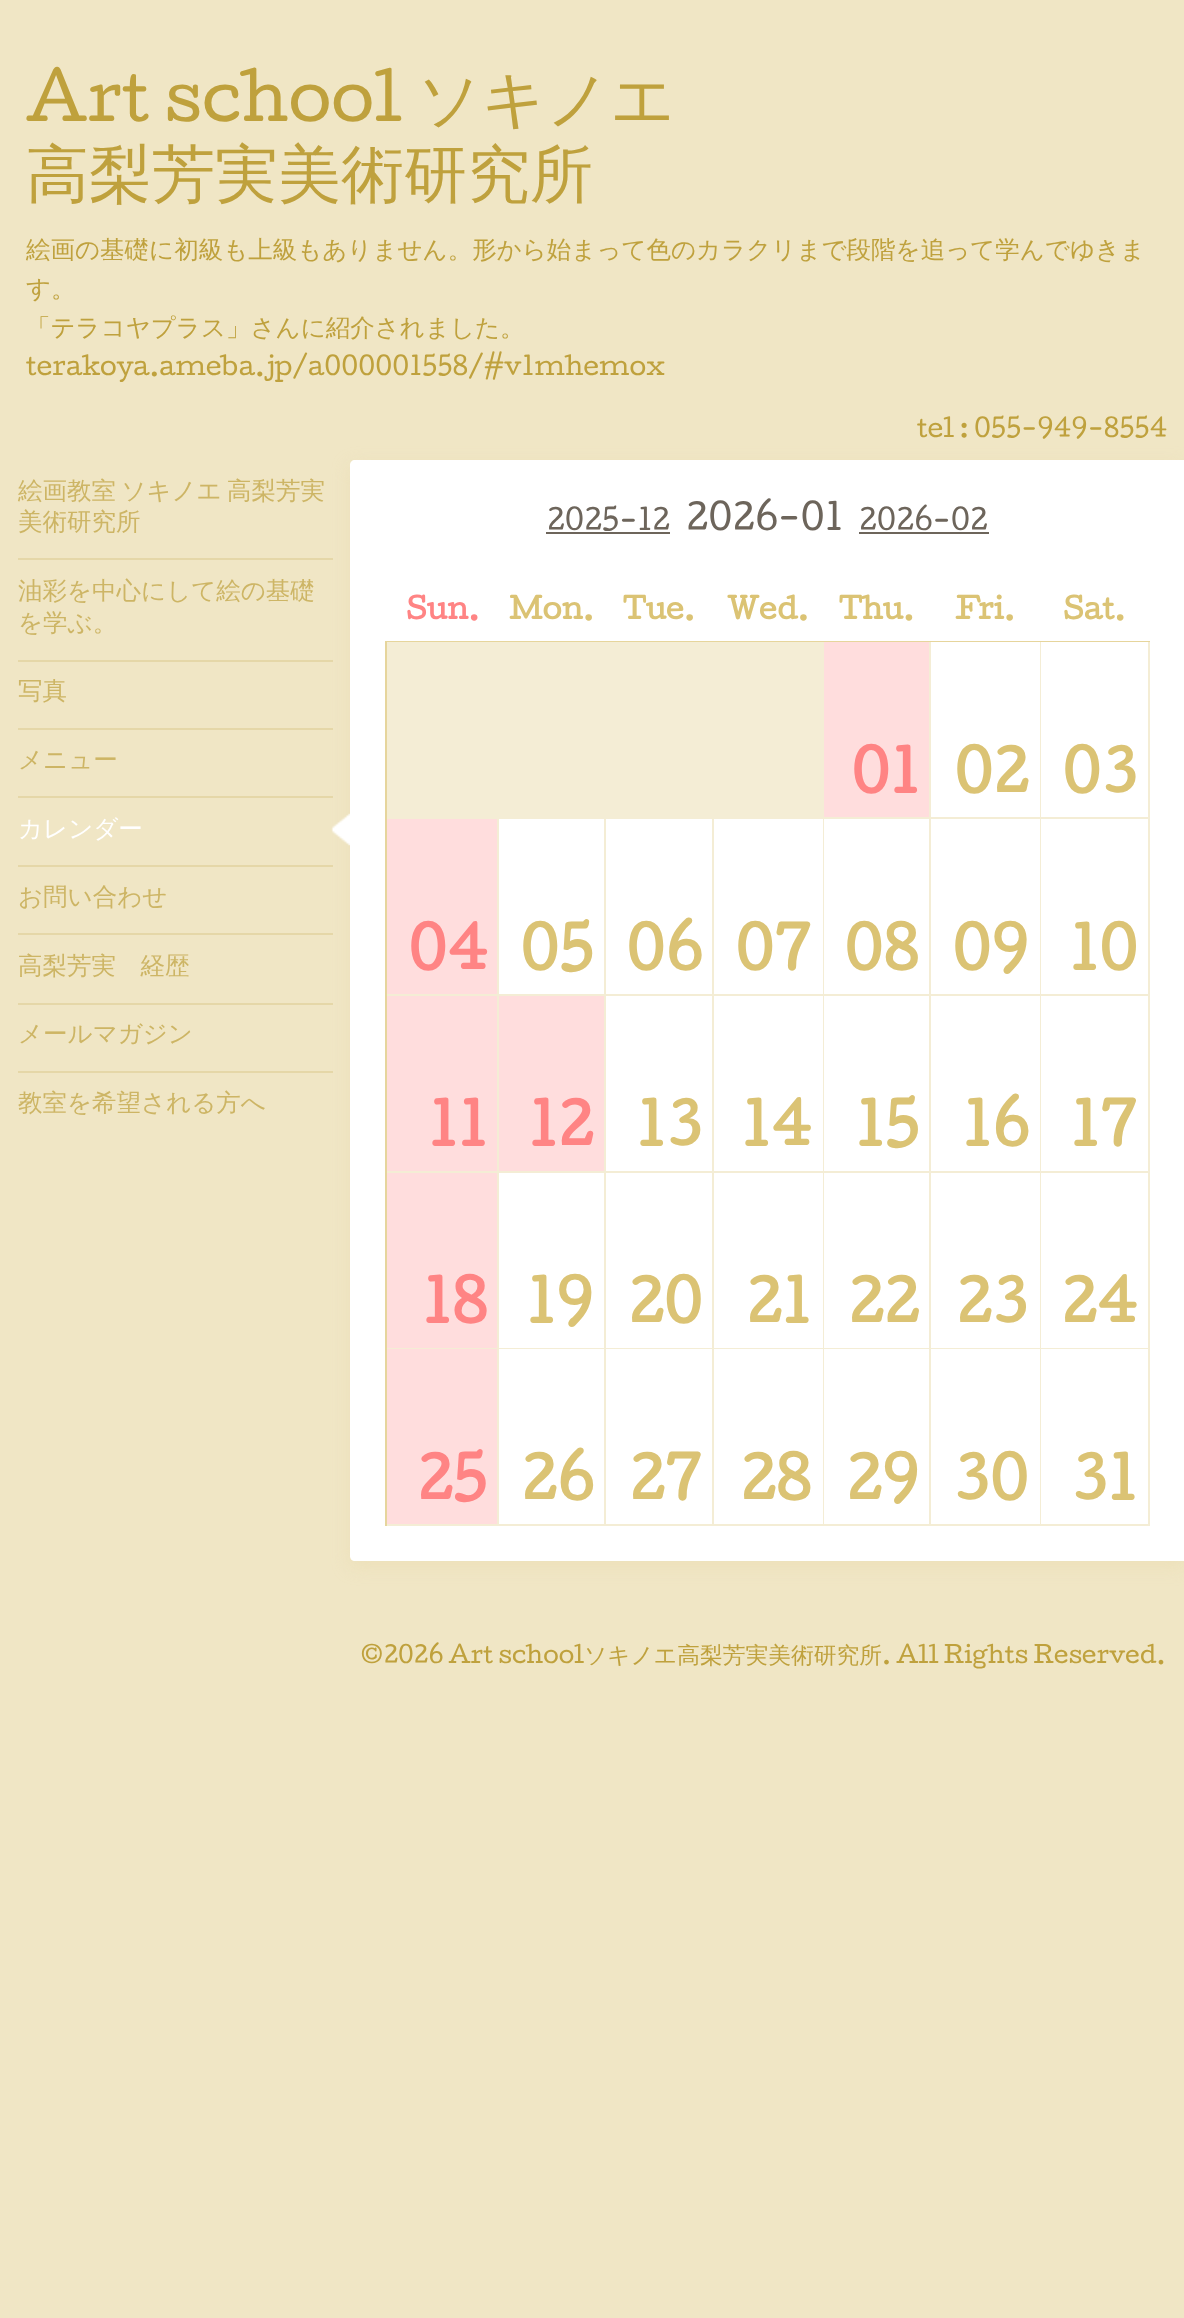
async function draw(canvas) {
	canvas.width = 1184;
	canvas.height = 2318;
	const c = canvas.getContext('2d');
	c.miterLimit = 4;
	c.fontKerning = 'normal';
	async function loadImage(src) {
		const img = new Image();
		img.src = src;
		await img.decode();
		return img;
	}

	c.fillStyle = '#f0e6c5';
	c.fillRect(0, 0, 1184, 2318);
	c.font = '63px Cutive';
	c.fillStyle = '#bfa13d';
	c.fillText('Art school', 26, 121);
	c.font = '500 63px WenQuanYi Zen Hei';
	c.fillText('ソキノエ', 417, 121);
	c.fillText('高梨芳実美術研究所', 26, 196);
	c.font = '500 24.5px WenQuanYi Zen Hei';
	for (const [text, x, y] of [
		['絵画の基礎に初級も上級もありません。形から始まって色のカラクリまで段階を追って学んでゆきま', 26, 258],
		['す。', 26, 297],
		['「テラコヤプラス」さんに紹介されました。', 26, 336],
	]) {
		c.fillText(text, x, y);
	}
	c.font = '24.5px Cutive';
	c.fillText('terakoya.ameba.jp/a000001558/#v1mhemox', 26, 375);
	c.fillText('tel : 055-949-8554', 917, 437);
	c.fillStyle = '#e8d8a566';
	c.filter = 'blur(9px)';
	c.beginPath();
	c.roundRect(350, 466, 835, 1100, 5);
	c.fill();
	c.filter = 'none';
	c.wordSpacing = '-2px';
	c.font = '500 24.5px WenQuanYi Zen Hei';
	c.fillStyle = '#cdb565';
	c.fillText('絵画教室 ソキノエ 高梨芳実', 18, 499);
	c.wordSpacing = '0px';
	c.fillText('美術研究所', 18, 530);
	c.fillStyle = '#e5d7a8';
	c.fillRect(18, 558, 315, 2);
	c.fillStyle = '#cdb565';
	c.fillText('油彩を中心にして絵の基礎', 18, 599);
	c.fillText('を学ぶ。', 18, 631);
	c.fillStyle = '#e5d7a8';
	c.fillRect(18, 660, 315, 2);
	c.fillStyle = '#cdb565';
	c.fillText('写真', 18, 699);
	c.fillStyle = '#e5d7a8';
	c.fillRect(18, 728, 315, 2);
	c.fillStyle = '#cdb565';
	c.fillText('メニュー', 18, 768);
	c.drawImage(await loadImage('img1.png'), 331, 813, 19, 33);
	c.fillStyle = '#e5d7a8';
	c.fillRect(18, 796, 315, 2);
	c.fillStyle = '#fff';
	c.fillText('カレンダー', 18, 837);
	c.fillStyle = '#e5d7a8';
	c.fillRect(18, 865, 315, 2);
	c.fillStyle = '#cdb565';
	c.fillText('お問い合わせ', 18, 905);
	c.fillStyle = '#e5d7a8';
	c.fillRect(18, 933, 315, 2);
	c.fillStyle = '#cdb565';
	c.fillText('高梨芳実　経歴', 18, 974);
	c.fillStyle = '#e5d7a8';
	c.fillRect(18, 1003, 315, 2);
	c.fillStyle = '#cdb565';
	c.fillText('メールマガジン', 18, 1042);
	c.fillStyle = '#e5d7a8';
	c.fillRect(18, 1071, 315, 2);
	c.fillStyle = '#cdb565';
	c.fillText('教室を希望される方へ', 18, 1111);
	c.fillStyle = '#fff';
	c.beginPath();
	c.moveTo(355, 460);
	c.lineTo(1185, 460);
	c.lineTo(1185, 1561);
	c.lineTo(355, 1561);
	c.bezierCurveTo(352, 1561, 350, 1559, 350, 1556);
	c.lineTo(350, 465);
	c.bezierCurveTo(350, 462, 352, 460, 355, 460);
	c.closePath();
	c.fill();
	c.font = '28px Cutive';
	c.fillStyle = '#6d655b';
	c.fillText('2025-12', 547, 530);
	c.fillRect(546, 532, 124, 2);
	c.font = '35px Cutive';
	c.fillText('2026-01', 686, 530);
	c.font = '28px Cutive';
	c.fillText('2026-02', 859, 530);
	c.fillRect(859, 532, 130, 2);
	c.font = 'bold 28px Cutive';
	c.fillStyle = '#ff8484';
	c.fillText('Sun.', 406, 619);
	c.fillStyle = '#dbc374';
	for (const [text, x, y] of [
		['Mon.', 509, 619],
		['Tue.', 623, 619],
		['Wed.', 727, 619],
		['Thu.', 839, 619],
		['Fri.', 955, 619],
		['Sat.', 1063, 619],
	]) {
		c.fillText(text, x, y);
	}
	for (const [x, y, w, h, color] of [
		[385, 641, 765, 1, '#e6d59c'],
		[385, 817, 2, 709, '#e6d59c'],
		[385, 641, 2, 178, '#e6d59c'],
		[387, 642, 544, 177, '#f4edd5'],
		[824, 642, 105, 175, '#fdd'],
	]) {
		c.fillStyle = color;
		c.fillRect(x, y, w, h);
	}
	c.font = 'bold 56px Cutive';
	c.fillStyle = '#ff8484';
	c.fillText('01', 851, 793);
	c.fillStyle = '#f4edd5';
	c.fillRect(931, 817, 109, 2);
	c.fillStyle = '#dbc374';
	c.fillText('02', 954, 793);
	c.fillStyle = '#f4edd5';
	c.fillRect(1040, 642, 110, 884);
	c.fillStyle = '#fff';
	c.fillRect(1041, 642, 107, 175);
	c.fillStyle = '#dbc374';
	c.fillText('03', 1062, 793);
	c.fillStyle = '#f4edd5';
	c.fillRect(387, 819, 327, 177);
	c.fillStyle = '#fdd';
	c.fillRect(387, 819, 110, 175);
	c.fillStyle = '#ff8484';
	c.fillText('04', 408, 970);
	c.fillStyle = '#fff';
	c.fillRect(499, 819, 105, 175);
	c.fillStyle = '#dbc374';
	c.fillText('05', 520, 970);
	c.fillStyle = '#fff';
	c.fillRect(606, 819, 106, 175);
	c.fillStyle = '#dbc374';
	c.fillText('06', 626, 970);
	c.fillStyle = '#f4edd5';
	c.fillRect(714, 994, 109, 2);
	c.fillStyle = '#dbc374';
	c.fillText('07', 735, 970);
	c.fillStyle = '#f4edd5';
	c.fillRect(823, 819, 108, 707);
	c.fillStyle = '#fff';
	c.fillRect(824, 819, 105, 175);
	c.fillStyle = '#dbc374';
	c.fillText('08', 844, 970);
	c.fillStyle = '#f4edd5';
	c.fillRect(931, 994, 109, 2);
	c.fillStyle = '#dbc374';
	c.fillText('09', 952, 970);
	c.fillStyle = '#fff';
	c.fillRect(1041, 819, 107, 175);
	c.fillStyle = '#dbc374';
	c.fillText('10', 1069, 970);
	c.fillStyle = '#f4edd5';
	c.fillRect(387, 996, 327, 177);
	c.fillStyle = '#fdd';
	c.fillRect(387, 996, 110, 175);
	c.fillStyle = '#ff8484';
	c.fillText('11', 428, 1146);
	c.fillStyle = '#fdd';
	c.fillRect(499, 996, 105, 175);
	c.fillStyle = '#ff8484';
	c.fillText('12', 528, 1146);
	c.fillStyle = '#fff';
	c.fillRect(606, 996, 106, 175);
	c.fillStyle = '#dbc374';
	c.fillText('13', 636, 1146);
	c.fillStyle = '#f4edd5';
	c.fillRect(714, 1171, 109, 2);
	c.fillStyle = '#dbc374';
	c.fillText('14', 741, 1146);
	c.fillStyle = '#fff';
	c.fillRect(824, 996, 105, 175);
	c.fillStyle = '#dbc374';
	c.fillText('15', 855, 1146);
	c.fillStyle = '#f4edd5';
	c.fillRect(931, 1171, 109, 2);
	c.fillStyle = '#dbc374';
	c.fillText('16', 962, 1146);
	c.fillStyle = '#fff';
	c.fillRect(1041, 996, 107, 175);
	c.fillStyle = '#dbc374';
	c.fillText('17', 1070, 1146);
	c.fillStyle = '#f4edd5';
	c.fillRect(387, 1173, 327, 176);
	c.fillStyle = '#fdd';
	c.fillRect(387, 1173, 110, 175);
	c.fillStyle = '#ff8484';
	c.fillText('18', 422, 1323);
	c.fillStyle = '#fff';
	c.fillRect(499, 1173, 105, 175);
	c.fillStyle = '#dbc374';
	c.fillText('19', 526, 1323);
	c.fillStyle = '#fff';
	c.fillRect(606, 1173, 106, 175);
	c.fillStyle = '#dbc374';
	c.fillText('20', 628, 1323);
	c.fillStyle = '#f4edd5';
	c.fillRect(714, 1348, 109, 1);
	c.fillStyle = '#dbc374';
	c.fillText('21', 746, 1323);
	c.fillStyle = '#fff';
	c.fillRect(824, 1173, 105, 175);
	c.fillStyle = '#dbc374';
	c.fillText('22', 848, 1323);
	c.fillStyle = '#f4edd5';
	c.fillRect(931, 1348, 109, 1);
	c.fillStyle = '#dbc374';
	c.fillText('23', 956, 1323);
	c.fillStyle = '#fff';
	c.fillRect(1041, 1173, 107, 175);
	c.fillStyle = '#dbc374';
	c.fillText('24', 1061, 1323);
	c.fillStyle = '#f4edd5';
	c.fillRect(387, 1349, 327, 177);
	c.fillStyle = '#fdd';
	c.fillRect(387, 1349, 110, 175);
	c.fillStyle = '#ff8484';
	c.fillText('25', 417, 1500);
	c.fillStyle = '#fff';
	c.fillRect(499, 1349, 105, 175);
	c.fillStyle = '#dbc374';
	c.fillText('26', 521, 1500);
	c.fillStyle = '#fff';
	c.fillRect(606, 1349, 106, 175);
	c.fillStyle = '#dbc374';
	c.fillText('27', 629, 1500);
	c.fillStyle = '#f4edd5';
	c.fillRect(714, 1524, 109, 2);
	c.fillStyle = '#dbc374';
	c.fillText('28', 740, 1500);
	c.fillStyle = '#fff';
	c.fillRect(824, 1349, 105, 175);
	c.fillStyle = '#dbc374';
	c.fillText('29', 846, 1500);
	c.fillStyle = '#f4edd5';
	c.fillRect(931, 1524, 109, 2);
	c.fillStyle = '#dbc374';
	c.fillText('30', 953, 1500);
	c.fillStyle = '#fff';
	c.fillRect(1041, 1349, 107, 175);
	c.fillStyle = '#dbc374';
	c.fillText('31', 1071, 1500);
	c.font = '22.75px Cutive';
	c.fillStyle = '#bfa13d';
	c.fillText('©2026 Art school', 360, 1663);
	c.font = '500 22.75px WenQuanYi Zen Hei';
	c.fillText('ソキノエ高梨芳実美術研究所', 584, 1663);
	c.font = '22.75px Cutive';
	c.fillText('. All Rights Reserved.', 882, 1663);
}

draw(document.querySelector('canvas'));
